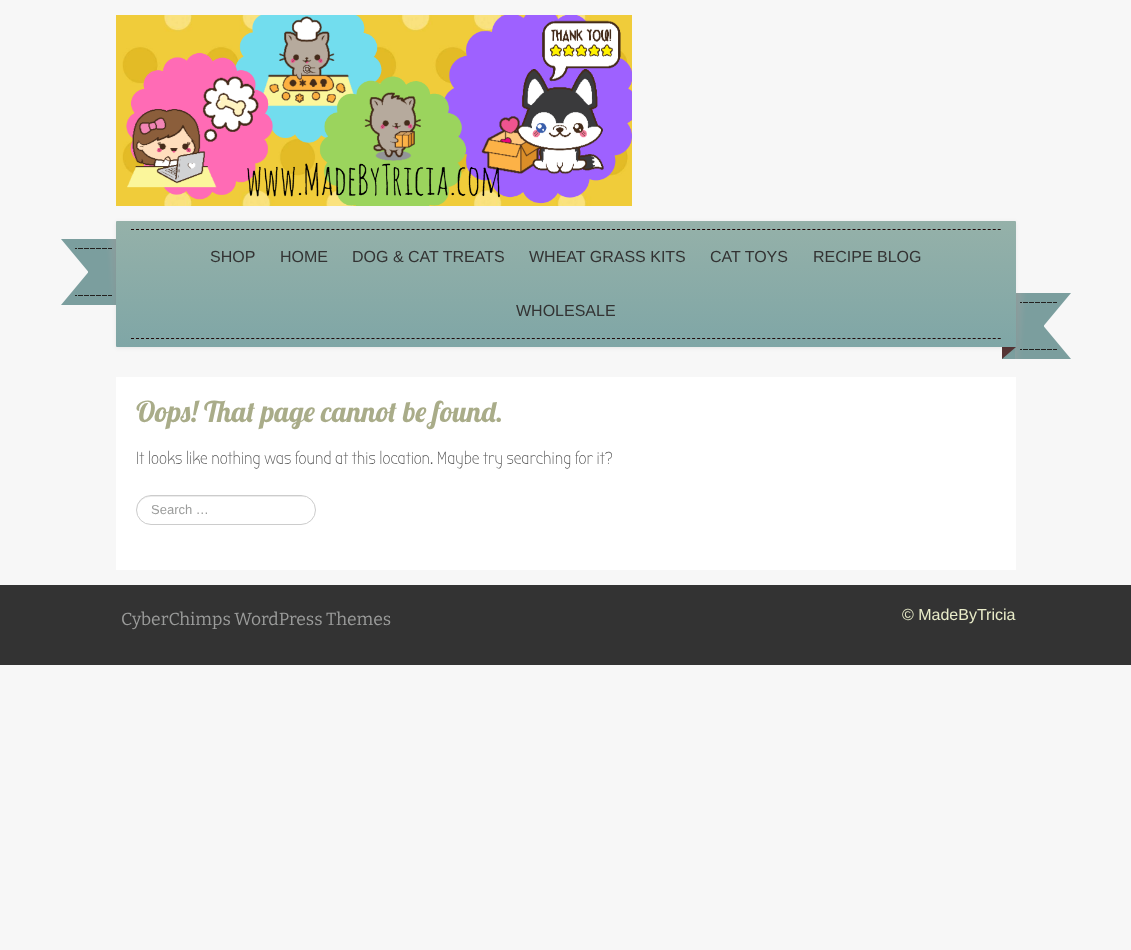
async function draw(canvas) {
	canvas.width = 1131;
	canvas.height = 950;
	const c = canvas.getContext('2d');
	c.miterLimit = 4;
	c.fontKerning = 'normal';
	async function loadImage(src) {
		const img = new Image();
		img.src = src;
		await img.decode();
		return img;
	}
	let gradient;

	c.fillStyle = '#f7f7f7';
	c.fillRect(0, 0, 1131, 950);
	c.drawImage(await loadImage('img1.png'), 116, 15, 516, 191);
	c.drawImage(await loadImage('img2.png'), 61, 239, 55, 66);
	c.fillStyle = '#7b9e9e';
	c.fillRect(1002, 347, 13, 12);
	c.drawImage(await loadImage('img3.png'), 1015, 293, 56, 66);
	c.fillStyle = '#563535';
	c.beginPath();
	c.moveTo(1002, 347);
	c.lineTo(1016, 347);
	c.lineTo(1002, 359);
	c.closePath();
	c.fill();
	c.fillStyle = '#00000012';
	c.filter = 'blur(2px)';
	c.beginPath();
	c.roundRect(116, 222, 900, 126, 1);
	c.fill();
	c.filter = 'none';
	gradient = c.createLinearGradient(566, 221, 566, 347);
	gradient.addColorStop(0, '#95b1a9');
	gradient.addColorStop(1, '#7fa6a6');
	c.fillStyle = gradient;
	c.beginPath();
	c.roundRect(116, 221, 900, 126, 1);
	c.fill();
	c.beginPath();
	c.moveTo(131, 229.5);
	c.lineTo(1001, 229.5);
	c.strokeStyle = '#220b0b';
	c.setLineDash([3, 2.01]);
	c.stroke();
	c.beginPath();
	c.moveTo(131, 338.5);
	c.lineTo(1001, 338.5);
	c.stroke();
	c.font = '16px Liberation Sans';
	c.fillStyle = '#333';
	for (const [text, x, y] of [
		['SHOP', 210, 262],
		['HOME', 280, 262],
		['DOG & CAT TREATS', 352, 262],
		['WHEAT GRASS KITS', 529, 262],
		['CAT TOYS', 710, 262],
		['RECIPE BLOG', 813, 262],
		['WHOLESALE', 516, 316],
	]) {
		c.fillText(text, x, y);
	}
	c.fillStyle = '#fff';
	c.fillRect(116, 377, 900, 193);
	c.font = '28.75px Lobster';
	c.fillStyle = '#a9ac89';
	c.fillText('Oops! That page cannot be found.', 136, 422);
	c.font = '17.6px Bubbler One';
	c.fillStyle = '#555';
	c.fillText('It looks like nothing was found at this location. Maybe try searching for it?', 136, 464);
	c.fillStyle = '#ececec';
	c.beginPath();
	c.moveTo(151, 497);
	c.lineTo(304, 497);
	c.bezierCurveTo(312, 499, 316, 506, 315, 513);
	c.bezierCurveTo(315, 510, 315, 507, 314, 505);
	c.bezierCurveTo(308, 491, 285, 496, 276, 496);
	c.lineTo(176, 496);
	c.bezierCurveTo(166, 496, 135, 490, 137, 511);
	c.bezierCurveTo(137, 504, 142, 497, 151, 497);
	c.closePath();
	c.fill();
	c.beginPath();
	c.roundRect(136.5, 495.5, 179, 29, 14.5);
	c.strokeStyle = '#ccc';
	c.setLineDash([]);
	c.stroke();
	c.font = '13px Liberation Sans';
	c.fillStyle = '#9b9c9b';
	c.fillText('Search …', 151, 514);
	c.fillStyle = '#333';
	c.fillRect(0, 585, 1131, 80);
	c.font = '100 17.5px Bitter';
	c.fillStyle = '#9b9c9b';
	c.fillText('CyberChimps WordPress Themes', 121, 625);
	c.font = '16px Liberation Sans';
	c.fillStyle = '#e9ecc9';
	c.fillText('© MadeByTricia', 902, 620);
}

draw(document.querySelector('canvas'));
